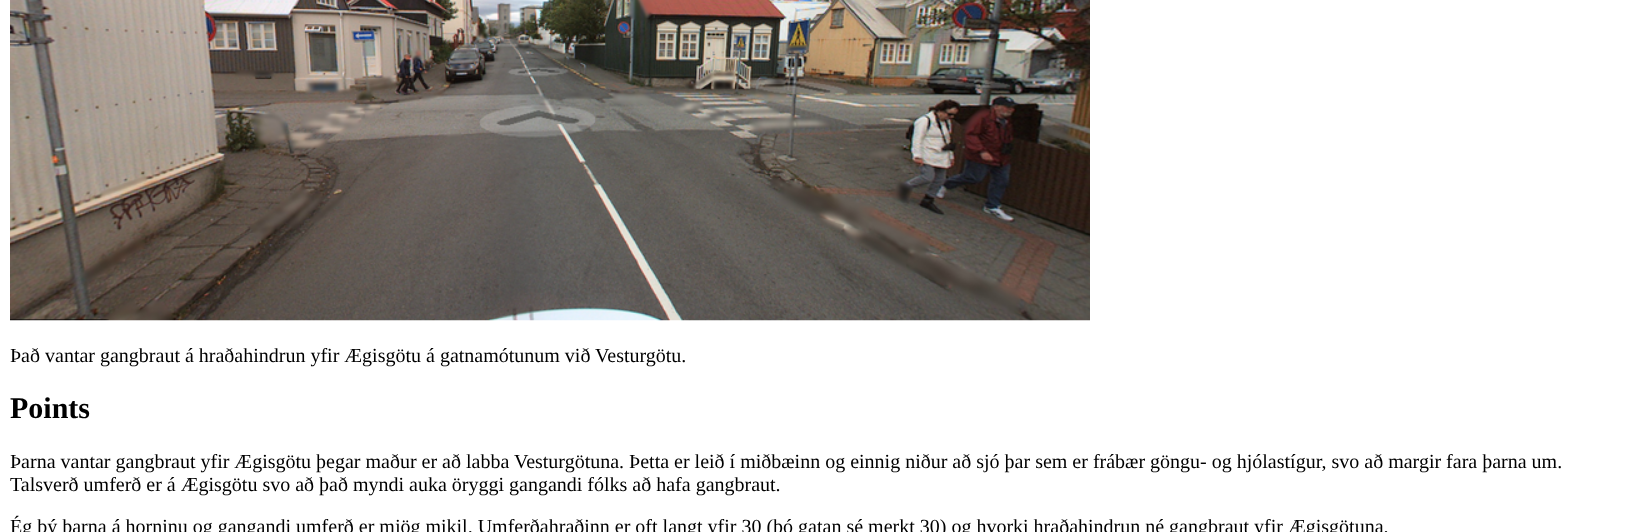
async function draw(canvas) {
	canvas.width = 1639;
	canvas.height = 532;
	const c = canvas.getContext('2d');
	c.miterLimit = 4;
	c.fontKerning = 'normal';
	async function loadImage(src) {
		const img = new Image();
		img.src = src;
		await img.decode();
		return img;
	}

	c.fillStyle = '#fff';
	c.fillRect(0, 0, 1639, 532);
	c.drawImage(await loadImage('img1.png'), 10, 0, 1080, 321);
	c.font = '20px Liberation Serif';
	c.fillStyle = '#000';
	c.fillText('Það vantar gangbraut á hraðahindrun yfir Ægisgötu á gatnamótunum við Vesturgötu.', 10, 362);
	c.font = 'bold 30px Liberation Serif';
	c.fillText('Points', 10, 418);
	c.font = '20px Liberation Serif';
	for (const [text, x, y] of [
		['Þarna vantar gangbraut yfir Ægisgötu þegar maður er að labba Vesturgötuna. Þetta er leið í miðbæinn og einnig niður að sjó þar sem er frábær göngu- og hjólastígur, svo að margir fara þarna um.', 10, 468],
		['Talsverð umferð er á Ægisgötu svo að það myndi auka öryggi gangandi fólks að hafa gangbraut.', 10, 491],
		['Ég bý þarna á horninu og gangandi umferð er mjög mikil. Umferðahraðinn er oft langt yfir 30 (þó gatan sé merkt 30) og hvorki hraðahindrun né gangbraut yfir Ægisgötuna.', 10, 533],
	]) {
		c.fillText(text, x, y);
	}
}

draw(document.querySelector('canvas'));
